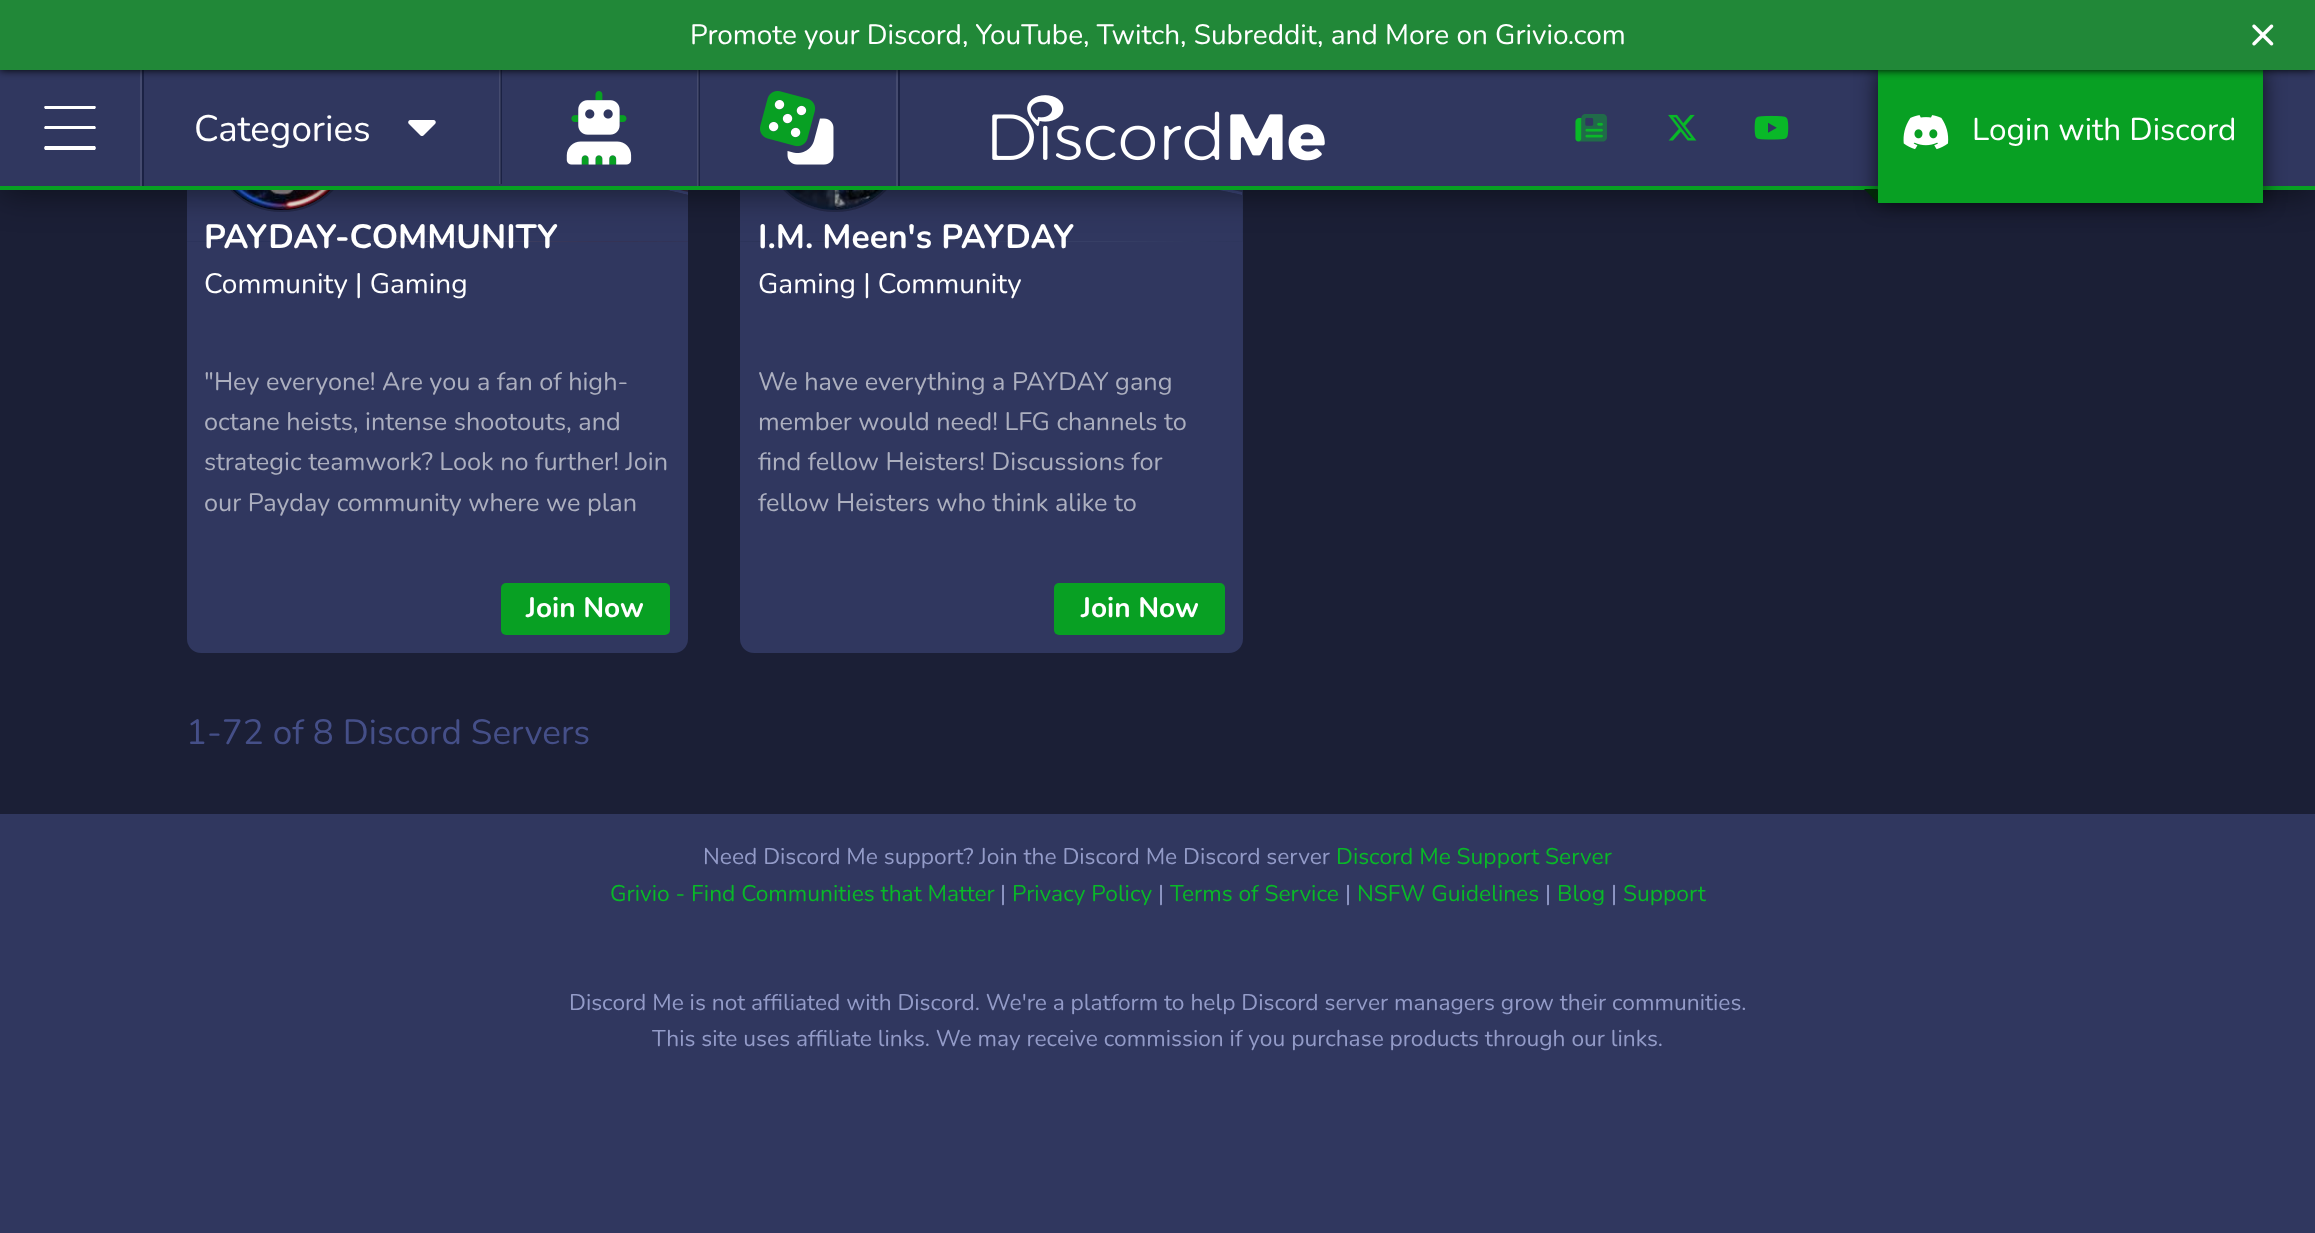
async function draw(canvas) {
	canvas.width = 2315;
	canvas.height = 1233;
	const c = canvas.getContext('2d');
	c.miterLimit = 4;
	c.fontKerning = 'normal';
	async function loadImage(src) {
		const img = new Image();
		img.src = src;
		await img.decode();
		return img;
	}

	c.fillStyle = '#1b1f36';
	c.fillRect(0, 0, 2315, 1233);
	c.fillStyle = '#30375f';
	c.beginPath();
	c.roundRect(187, -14, 501, 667, 14);
	c.fill();
	c.drawImage(await loadImage('img11.png'), 187, 190, 501, 52);
	c.fillStyle = '#414b81';
	c.beginPath();
	c.moveTo(507, 169);
	c.bezierCurveTo(412, 170, 320, 194, 227, 159);
	c.bezierCurveTo(215, 154, 196, 145, 187, 135);
	c.lineTo(187, 138);
	c.bezierCurveTo(196, 149, 215, 158, 227, 162);
	c.bezierCurveTo(328, 200, 432, 168, 536, 172);
	c.bezierCurveTo(587, 174, 639, 183, 688, 195);
	c.lineTo(688, 192);
	c.bezierCurveTo(677, 189, 582, 167, 507, 169);
	c.closePath();
	c.fill();
	c.fillStyle = '#30375f';
	c.beginPath();
	c.moveTo(507, 172);
	c.bezierCurveTo(414, 174, 318, 196, 227, 162);
	c.bezierCurveTo(215, 158, 196, 149, 187, 138);
	c.lineTo(187, 241);
	c.lineTo(688, 241);
	c.lineTo(688, 195);
	c.bezierCurveTo(677, 192, 582, 170, 507, 172);
	c.closePath();
	c.fill();
	c.beginPath();
	c.arc(282, 140, 71, 0, 2 * Math.PI);
	c.strokeStyle = '#14162866';
	c.lineWidth = 2;
	c.stroke();
	c.drawImage(await loadImage('img10.png'), 233, 190, 98, 20);
	c.beginPath();
	c.roundRect(740, -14, 503, 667, 14);
	c.fill();
	c.drawImage(await loadImage('img13.png'), 740, 190, 503, 52);
	c.fillStyle = '#414b81';
	c.beginPath();
	c.moveTo(1060, 169);
	c.bezierCurveTo(982, 170, 925, 183, 858, 176);
	c.bezierCurveTo(766, 166, 740, 135, 740, 135);
	c.lineTo(740, 138);
	c.bezierCurveTo(740, 138, 766, 170, 858, 179);
	c.bezierCurveTo(925, 186, 982, 174, 1060, 172);
	c.bezierCurveTo(1140, 170, 1242, 195, 1242, 195);
	c.lineTo(1242, 192);
	c.bezierCurveTo(1242, 192, 1140, 167, 1060, 169);
	c.closePath();
	c.fill();
	c.fillStyle = '#30375f';
	c.beginPath();
	c.moveTo(1060, 172);
	c.bezierCurveTo(982, 174, 925, 186, 858, 179);
	c.bezierCurveTo(766, 170, 740, 138, 740, 138);
	c.lineTo(740, 241);
	c.lineTo(1242, 241);
	c.lineTo(1242, 195);
	c.bezierCurveTo(1242, 195, 1140, 170, 1060, 172);
	c.closePath();
	c.fill();
	c.beginPath();
	c.arc(835, 140, 71, 0, 2 * Math.PI);
	c.stroke();
	c.drawImage(await loadImage('img12.png'), 786, 190, 98, 20);
	c.fillStyle = '#00000080';
	c.filter = 'blur(17.5px)';
	c.beginPath();
	c.rect(0, 4, 2315, 189);
	c.fill();
	c.filter = 'none';
	c.fillStyle = '#30375f';
	c.fillRect(0, 70, 2315, 116);
	c.fillStyle = '#08a023';
	c.fillRect(0, 186, 2315, 4);
	c.fillStyle = '#1b2244';
	c.beginPath();
	c.moveTo(2, 186);
	c.lineTo(144, 186);
	c.lineTo(144, 70);
	c.lineTo(142, 70);
	c.lineTo(142, 186);
	c.closePath();
	c.fill();
	c.fillStyle = '#454b6f';
	c.fillRect(140, 70, 2, 116);
	c.fillStyle = '#1b2244';
	c.beginPath();
	c.moveTo(144, 184);
	c.lineTo(502, 184);
	c.lineTo(502, 70);
	c.lineTo(500, 70);
	c.lineTo(500, 184);
	c.closePath();
	c.fill();
	c.fillStyle = '#ffffff1a';
	c.fillRect(499, 70, 2, 114);
	c.fillStyle = '#1b2244';
	c.beginPath();
	c.moveTo(502, 186);
	c.lineTo(700, 186);
	c.lineTo(700, 70);
	c.lineTo(698, 70);
	c.lineTo(698, 186);
	c.closePath();
	c.fill();
	c.fillStyle = '#ffffff1a';
	c.fillRect(697, 70, 2, 116);
	c.fillStyle = '#1b2244';
	c.beginPath();
	c.moveTo(700, 186);
	c.lineTo(900, 186);
	c.lineTo(900, 70);
	c.lineTo(898, 70);
	c.lineTo(898, 186);
	c.closePath();
	c.fill();
	c.fillStyle = '#454b6f';
	c.fillRect(896, 70, 2, 116);
	c.fillStyle = '#000000b3';
	c.filter = 'blur(10.5px)';
	c.beginPath();
	c.rect(1878, 70, 385, 133);
	c.fill();
	c.filter = 'none';
	c.fillStyle = '#08a023';
	c.fillRect(1878, 70, 385, 133);
	c.fillStyle = '#000';
	c.filter = 'blur(4.5px)';
	c.beginPath();
	c.rect(0, 0, 2315, 70);
	c.fill();
	c.filter = 'none';
	c.fillStyle = '#218838';
	c.fillRect(0, 0, 2315, 70);
	c.font = '28px Nunito';
	c.fillStyle = '#fff';
	c.fillText('Promote your Discord, YouTube, Twitch, Subreddit, and More on Grivio.com', 690, 44);
	c.drawImage(await loadImage('img1.png'), 2252, 24, 22, 22);
	c.beginPath();
	c.moveTo(44, 107);
	c.lineTo(45, 106);
	c.lineTo(95, 106);
	c.lineTo(96, 107);
	c.lineTo(95, 109);
	c.lineTo(45, 109);
	c.closePath();
	c.moveTo(44, 128);
	c.lineTo(45, 126);
	c.lineTo(95, 126);
	c.lineTo(96, 128);
	c.lineTo(95, 129);
	c.lineTo(45, 129);
	c.closePath();
	c.moveTo(96, 148);
	c.lineTo(95, 150);
	c.lineTo(45, 150);
	c.lineTo(44, 148);
	c.lineTo(45, 146);
	c.lineTo(95, 146);
	c.closePath();
	c.fill();
	c.font = '36.75px Nunito';
	c.fillText('Categories', 194, 141);
	c.drawImage(await loadImage('img2.png'), 408, 120, 28, 16);
	c.drawImage(await loadImage('img3.png'), 566, 91, 66, 74);
	c.drawImage(await loadImage('img4.png'), 760, 91, 74, 74);
	c.drawImage(await loadImage('img5.png'), 992, 95, 333, 66);
	c.drawImage(await loadImage('img6.png'), 1575, 114, 32, 28);
	c.drawImage(await loadImage('img7.png'), 1668, 114, 29, 27);
	c.drawImage(await loadImage('img8.png'), 1754, 115, 35, 25);
	c.drawImage(await loadImage('img9.png'), 1903, 115, 46, 35);
	c.font = '31.5px Nunito';
	c.fillText('Login with Discord', 1972, 140);
	c.fillStyle = '#022708';
	c.beginPath();
	c.moveTo(1864, 189);
	c.lineTo(1878, 189);
	c.lineTo(1871, 196);
	c.closePath();
	c.fill();
	c.beginPath();
	c.moveTo(1878, 189);
	c.lineTo(1878, 203);
	c.lineTo(1871, 196);
	c.closePath();
	c.fill();
	c.font = 'bold 33.6px Nunito';
	c.fillStyle = '#fff';
	c.fillText('PAYDAY-COMMUNITY', 204, 248);
	c.font = '28px Nunito';
	c.fillText('Community | Gaming', 204, 293);
	c.font = '25.25px Nunito';
	c.fillStyle = '#acafbf';
	for (const [text, x, y] of [
		['"Hey everyone! Are you a fan of high-', 204, 390],
		['octane heists, intense shootouts, and', 204, 430],
		['strategic teamwork? Look no further! Join', 204, 470],
		['our Payday community where we plan', 204, 511],
	]) {
		c.fillText(text, x, y);
	}
	c.fillStyle = '#08a023';
	c.beginPath();
	c.roundRect(501, 583, 169, 52, 5);
	c.fill();
	c.font = 'bold 28px Nunito';
	c.fillStyle = '#fff';
	c.fillText('Join Now', 526, 617);
	c.font = 'bold 33.6px Nunito';
	c.fillText('I.M. Meen\'s PAYDAY', 758, 248);
	c.font = '28px Nunito';
	c.fillText('Gaming | Community', 758, 293);
	c.font = '25.25px Nunito';
	c.fillStyle = '#acafbf';
	for (const [text, x, y] of [
		['We have everything a PAYDAY gang', 758, 390],
		['member would need! LFG channels to', 758, 430],
		['find fellow Heisters! Discussions for', 758, 470],
		['fellow Heisters who think alike to', 758, 511],
	]) {
		c.fillText(text, x, y);
	}
	c.fillStyle = '#08a023';
	c.beginPath();
	c.roundRect(1054, 583, 171, 52, 5);
	c.fill();
	c.font = 'bold 28px Nunito';
	c.fillStyle = '#fff';
	c.fillText('Join Now', 1081, 617);
	c.font = '35px Nunito';
	c.fillStyle = '#454f88';
	c.fillText('1-72 of 8 Discord Servers', 186, 744);
	c.fillStyle = '#30375f';
	c.fillRect(0, 814, 2315, 419);
	c.font = '22.75px Nunito';
	c.fillStyle = '#939bc8';
	c.fillText('Need Discord Me support? Join the Discord Me Discord server', 703, 864);
	c.fillStyle = '#09b828';
	c.fillText('Discord Me Support Server', 1336, 864);
	c.fillText('Grivio - Find Communities that Matter', 610, 901);
	c.fillStyle = '#939bc8';
	c.fillText('|', 1000, 901);
	c.fillStyle = '#09b828';
	c.fillText('Privacy Policy', 1012, 901);
	c.fillStyle = '#939bc8';
	c.fillText('|', 1158, 901);
	c.fillStyle = '#09b828';
	c.fillText('Terms of Service', 1170, 901);
	c.fillStyle = '#939bc8';
	c.fillText('|', 1345, 901);
	c.fillStyle = '#09b828';
	c.fillText('NSFW Guidelines', 1357, 901);
	c.fillStyle = '#939bc8';
	c.fillText('|', 1545, 901);
	c.fillStyle = '#09b828';
	c.fillText('Blog', 1557, 901);
	c.fillStyle = '#939bc8';
	c.fillText('|', 1611, 901);
	c.fillStyle = '#09b828';
	c.fillText('Support', 1623, 901);
	c.fillStyle = '#939bc8';
	c.fillText('Discord Me is not affiliated with Discord. We\'re a platform to help Discord server managers grow their communities.', 569, 1010);
	c.fillText('This site uses affiliate links. We may receive commission if you purchase products through our links.', 652, 1046);
}

draw(document.querySelector('canvas'));
